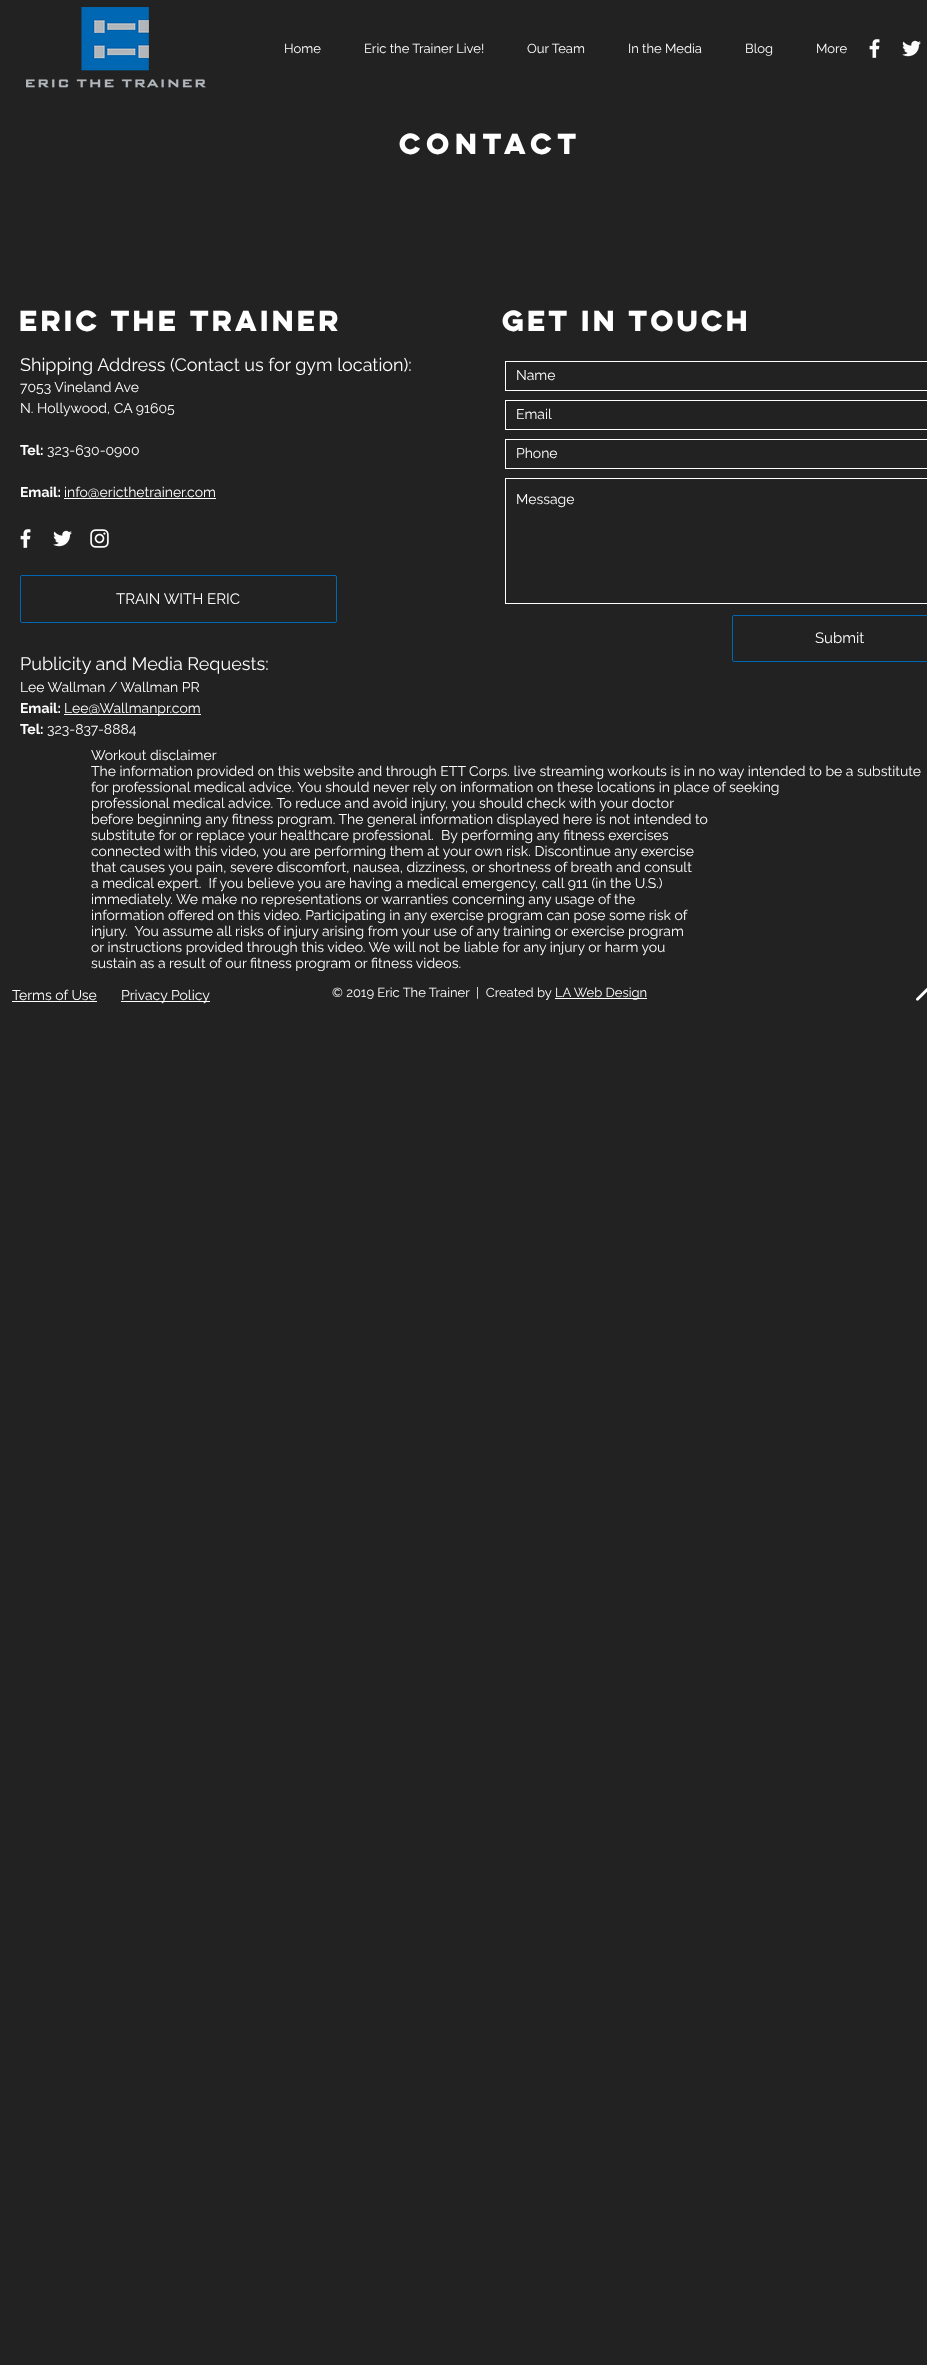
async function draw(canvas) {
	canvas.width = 927;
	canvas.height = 2365;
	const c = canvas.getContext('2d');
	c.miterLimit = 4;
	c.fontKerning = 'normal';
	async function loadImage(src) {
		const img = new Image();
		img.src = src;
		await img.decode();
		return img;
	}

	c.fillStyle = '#222';
	c.fillRect(0, 0, 927, 2365);
	c.drawImage(await loadImage('img1.png'), 26, 7, 180, 81);
	c.font = '13px Raleway';
	c.fillStyle = '#fff';
	for (const [text, x, y] of [
		['Home', 284, 53],
		['Eric the Trainer Live!', 364, 53],
		['Our Team', 527, 53],
		['In the Media', 628, 53],
		['Blog', 745, 53],
		['More', 816, 53],
	]) {
		c.fillText(text, x, y);
	}
	c.drawImage(await loadImage('img2.png'), 869, 39, 11, 19);
	c.drawImage(await loadImage('img3.png'), 902, 40, 19, 17);
	c.font = 'bold 26px "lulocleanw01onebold"';
	c.fillText('CONTACT', 399, 154);
	c.letterSpacing = '-2.6px';
	c.fillText('ERIC THE TRAINER', 19, 331);
	c.letterSpacing = '0px';
	c.font = '18px Raleway';
	c.fillText('Shipping Address (Contact us for gym location):', 20, 371);
	c.font = '14px Raleway';
	c.fillText('7053 Vineland Ave', 20, 392);
	c.fillText('N. Hollywood, CA 91605', 20, 413);
	c.font = 'bold 14px Raleway';
	c.fillText('Tel:', 20, 455);
	c.font = '14px Raleway';
	c.fillText('323-630-0900', 47, 455);
	c.font = 'bold 14px Raleway';
	c.fillText('Email:', 20, 497);
	c.fillRect(64, 498, 152, 1);
	c.font = '14px Raleway';
	c.fillText('info@ericthetrainer.com', 64, 497);
	c.font = '18px Raleway';
	c.fillText('Publicity and Media Requests:', 20, 670);
	c.font = '14px Raleway';
	c.fillText('Lee Wallman / Wallman PR', 20, 692);
	c.font = 'bold 14px Raleway';
	c.fillText('Email:', 20, 713);
	c.fillRect(64, 714, 137, 1);
	c.font = '14px Raleway';
	c.fillText('Lee@Wallmanpr.com', 64, 713);
	c.font = 'bold 14px Raleway';
	c.fillText('Tel:', 20, 734);
	c.font = '14px Raleway';
	c.fillText('323-837-8884', 47, 734);
	c.drawImage(await loadImage('img2.png'), 20, 529, 11, 19);
	c.drawImage(await loadImage('img3.png'), 53, 530, 19, 17);
	c.drawImage(await loadImage('img4.png'), 90, 529, 19, 19);
	c.beginPath();
	c.roundRect(20.5, 575.5, 316, 47, 1.5);
	c.strokeStyle = '#0068b3';
	c.stroke();
	c.font = '15px Raleway';
	c.fillText('TRAIN WITH ERIC', 116, 604);
	c.letterSpacing = '-2.6px';
	c.font = 'bold 26px "lulocleanw01onebold"';
	c.fillText('GET IN TOUCH', 502, 331);
	c.strokeStyle = '#fff';
	c.strokeRect(505.5, 361.5, 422, 29);
	c.letterSpacing = '0px';
	c.font = '14px Raleway';
	c.fillText('Name', 516, 380);
	c.strokeRect(505.5, 400.5, 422, 29);
	c.fillText('Email', 516, 419);
	c.strokeRect(505.5, 439.5, 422, 29);
	c.fillText('Phone', 516, 458);
	c.strokeRect(505.5, 478.5, 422, 125);
	c.fillText('Message', 516, 504);
	c.beginPath();
	c.roundRect(732.5, 615.5, 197, 46, 1.5);
	c.strokeStyle = '#0068b3';
	c.stroke();
	c.font = '15px Raleway';
	c.fillText('Submit', 815, 643);
	c.font = '14px Raleway';
	for (const [text, x, y] of [
		['Workout disclaimer', 91, 760],
		['The information provided on this website and through ETT Corps. live streaming workouts is in no way intended to be a substitute', 91, 776],
		['for professional medical advice. You should never rely on information on these locations in place of seeking', 91, 792],
		['professional medical advice. To reduce and avoid injury, you should check with your doctor', 91, 808],
		['before beginning any fitness program. The general information displayed here is not intended to', 91, 824],
		['substitute for or replace your healthcare professional.  By performing any fitness exercises', 91, 840],
		['connected with this video, you are performing them at your own risk. Discontinue any exercise', 91, 856],
		['that causes you pain, severe discomfort, nausea, dizziness, or shortness of breath and consult', 91, 872],
		['a medical expert.  If you believe you are having a medical emergency, call 911 (in the U.S.)', 91, 888],
		['immediately. We make no representations or warranties concerning any usage of the', 91, 904],
		['information offered on this video. Participating in any exercise program can pose some risk of', 91, 920],
		['injury.  You assume all risks of injury arising from your use of any training or exercise program', 91, 936],
		['or instructions provided through this video. We will not be liable for any injury or harm you', 91, 952],
		['sustain as a result of our fitness program or fitness videos.', 91, 968],
	]) {
		c.fillText(text, x, y);
	}
	c.fillStyle = '#222';
	c.fillRect(320, 971, 2, 1);
	c.fillStyle = '#fff';
	c.fillText('Terms of Use', 12, 1000);
	c.fillRect(12, 1001, 85, 1);
	c.fillRect(121, 1001, 89, 1);
	c.fillText('Privacy Policy', 121, 1000);
	c.font = '13px Raleway';
	c.fillText('© 2019 Eric The Trainer  |  Created by', 332, 997);
	c.fillRect(555, 998, 92, 1);
	c.fillText('LA Web Design', 555, 997);
	c.drawImage(await loadImage('img5.png'), 916, 987, 11, 14);
}

draw(document.querySelector('canvas'));
